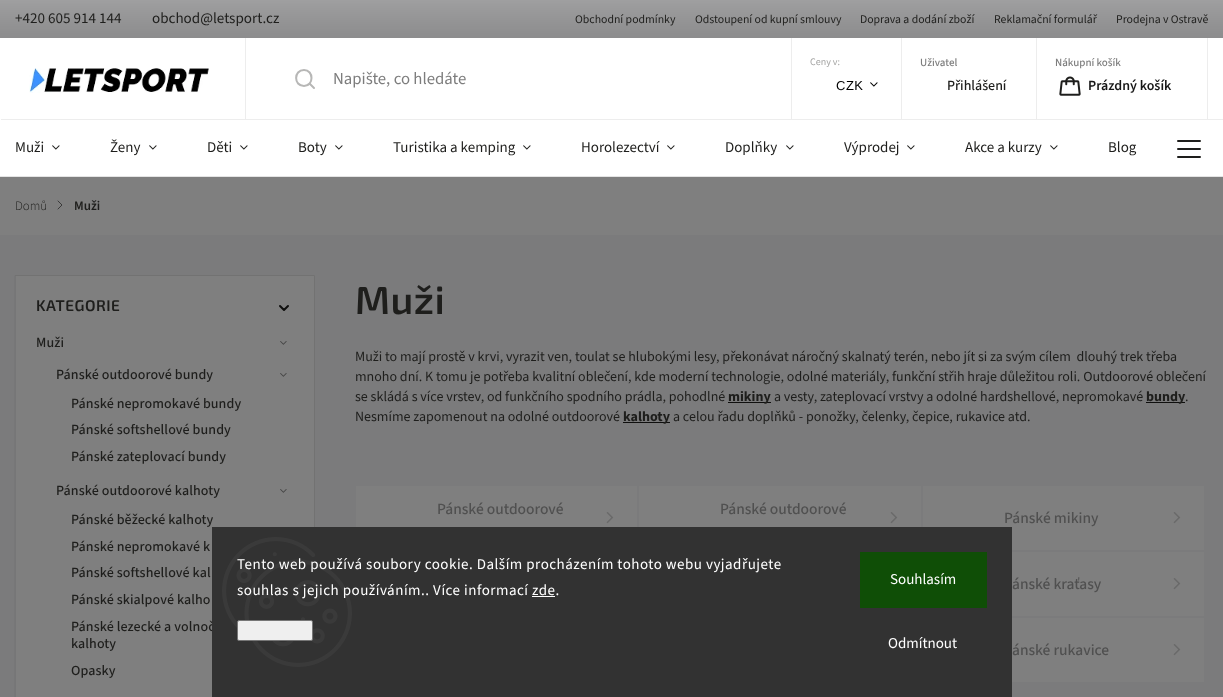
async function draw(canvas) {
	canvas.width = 1223;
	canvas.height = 697;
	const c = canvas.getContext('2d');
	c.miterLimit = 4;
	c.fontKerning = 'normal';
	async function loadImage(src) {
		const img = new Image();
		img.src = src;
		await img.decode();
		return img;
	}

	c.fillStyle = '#f7f7f9';
	c.fillRect(0, 0, 1223, 697);
	c.fillStyle = '#fff';
	c.fillRect(0, 177, 1223, 58);
	c.beginPath();
	c.moveTo(58, 209);
	c.lineTo(62, 205);
	c.lineTo(58, 201);
	c.strokeStyle = '#747474';
	c.lineCap = 'round';
	c.lineJoin = 'round';
	c.stroke();
	c.beginPath();
	c.rect(15.5, 275.5, 299, 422);
	c.fill();
	c.strokeStyle = '#e4e4e4';
	c.lineJoin = 'miter';
	c.stroke();
	c.beginPath();
	c.moveTo(280, 306);
	c.lineTo(284, 310);
	c.lineTo(288, 306);
	c.strokeStyle = '#1e1e1c';
	c.lineWidth = 2;
	c.lineJoin = 'round';
	c.stroke();
	c.drawImage(await loadImage('img5.png'), 280, 341, 7, 4);
	c.drawImage(await loadImage('img5.png'), 280, 373, 7, 4);
	c.drawImage(await loadImage('img5.png'), 280, 489, 7, 4);
	for (const [x, y, w, h, color] of [
		[728, 402, 43, 1, '#1e1e1c'],
		[1146, 402, 39, 1, '#1e1e1c'],
		[623, 422, 47, 1, '#1e1e1c'],
		[356, 486, 281, 41, '#fff'],
	]) {
		c.fillStyle = color;
		c.fillRect(x, y, w, h);
	}
	c.drawImage(await loadImage('img6.png'), 606, 512, 8, 12);
	c.fillRect(639, 486, 282, 41);
	c.drawImage(await loadImage('img6.png'), 890, 512, 8, 12);
	c.fillRect(923, 486, 281, 64);
	c.drawImage(await loadImage('img6.png'), 1173, 512, 8, 12);
	c.fillRect(1012, 552, 192, 64);
	c.drawImage(await loadImage('img6.png'), 1173, 578, 8, 12);
	c.fillRect(1012, 618, 192, 64);
	c.drawImage(await loadImage('img6.png'), 1173, 644, 8, 12);
	c.fillStyle = '#00000080';
	c.filter = 'blur(80px)';
	c.beginPath();
	c.rect(-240, -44, 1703, 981);
	c.fill();
	c.filter = 'none';
	c.font = '15.1px "Source Sans 3"';
	c.fillStyle = '#1e1e1c';
	c.fillText('+420 605 914 144', 15, 23);
	c.fillText('obchod@letsport.cz', 152, 23);
	c.font = '11.75px "Source Sans 3"';
	for (const [text, x, y] of [
		['Obchodní podmínky', 575, 23],
		['Odstoupení od kupní smlouvy', 695, 23],
		['Doprava a dodání zboží', 860, 23],
		['Reklamační formulář', 994, 23],
		['Prodejna v Ostravě', 1116, 23],
	]) {
		c.fillText(text, x, y);
	}
	c.fillStyle = '#fff';
	c.fillRect(0, 38, 1223, 138);
	c.fillStyle = '#e4e4e4';
	c.fillRect(0, 176, 1223, 1);
	c.drawImage(await loadImage('img1.png'), 29, 68, 180, 25);
	c.fillStyle = '#ededed';
	c.fillRect(245, 38, 1, 81);
	c.beginPath();
	c.moveTo(304, 86);
	c.bezierCurveTo(314, 86, 314, 70, 304, 70);
	c.bezierCurveTo(293.5, 70, 293.5, 86, 304, 86);
	c.closePath();
	c.moveTo(309.5, 83.5);
	c.lineTo(314, 88);
	c.strokeStyle = '#b7b7b6';
	c.stroke();
	c.font = '16.75px "Source Sans 3"';
	c.fillStyle = '#7d7d7d';
	c.fillText('Napište, co hledáte', 333, 84);
	c.fillStyle = '#ededed';
	c.fillRect(791, 38, 1, 81);
	c.font = '10px "Source Sans 3"';
	c.fillStyle = '#a5a5a4';
	c.fillText('Ceny v:', 810, 65);
	c.letterSpacing = '0.5px';
	c.font = '13px Liberation Sans';
	c.fillStyle = '#000';
	c.fillText('CZK', 836, 90);
	c.drawImage(await loadImage('img2.png'), 870, 82, 8, 5);
	c.fillStyle = '#ededed';
	c.fillRect(901, 38, 1, 81);
	c.letterSpacing = '0px';
	c.font = '500 11px "Source Sans 3"';
	c.fillStyle = '#7d7d7d';
	c.fillText('Uživatel', 920, 66);
	c.font = '500 14px "Source Sans 3"';
	c.fillStyle = '#1e1e1c';
	c.fillText('Přihlášení', 947, 90);
	c.fillStyle = '#ededed';
	c.fillRect(1207, 38, 1, 81);
	c.fillRect(1036, 38, 1, 81);
	c.font = '500 11px "Source Sans 3"';
	c.fillStyle = '#7d7d7d';
	c.fillText('Nákupní košík', 1055, 66);
	c.drawImage(await loadImage('img3.png'), 1059, 76, 22, 20);
	c.font = '600 14px "Source Sans 3"';
	c.fillStyle = '#171717';
	c.fillText('Prázdný košík', 1088, 90);
	c.fillStyle = '#ededed';
	c.fillRect(1, 119, 1222, 1);
	c.font = '15px "Source Sans 3"';
	c.fillStyle = '#1e1e1c';
	c.fillText('Muži', 15, 152);
	c.drawImage(await loadImage('img4.png'), 52, 145, 8, 5);
	c.fillText('Ženy', 110, 152);
	c.drawImage(await loadImage('img4.png'), 149, 145, 8, 5);
	c.fillText('Děti', 207, 152);
	c.drawImage(await loadImage('img4.png'), 240, 145, 8, 5);
	c.fillText('Boty', 298, 152);
	c.drawImage(await loadImage('img4.png'), 335, 145, 8, 5);
	c.fillText('Turistika a kemping', 393, 152);
	c.drawImage(await loadImage('img4.png'), 523, 145, 8, 5);
	c.fillText('Horolezectví', 581, 152);
	c.drawImage(await loadImage('img4.png'), 667, 145, 8, 5);
	c.fillText('Doplňky', 725, 152);
	c.drawImage(await loadImage('img4.png'), 786, 145, 8, 5);
	c.fillText('Výprodej', 844, 152);
	c.drawImage(await loadImage('img4.png'), 907, 145, 8, 5);
	c.fillText('Akce a kurzy', 965, 152);
	c.drawImage(await loadImage('img4.png'), 1050, 145, 8, 5);
	c.fillText('Blog', 1108, 152);
	c.beginPath();
	c.moveTo(1178, 149);
	c.lineTo(1200, 149);
	c.moveTo(1178, 141);
	c.lineTo(1200, 141);
	c.moveTo(1178, 157);
	c.lineTo(1200, 157);
	c.strokeStyle = '#1e1e1c';
	c.stroke();
	c.font = '300 13px "Source Sans 3"';
	c.fillText('Domů', 15, 210);
	c.font = '600 13px "Source Sans 3"';
	c.fillText('Muži', 74, 210);
	c.letterSpacing = '0.5px';
	c.font = '600 15.5px "Exo 2"';
	c.fillText('KATEGORIE', 36, 311);
	c.letterSpacing = '0.1px';
	c.font = '500 14px "Source Sans 3"';
	for (const [text, x, y] of [
		['Muži', 36, 347],
		['Pánské outdoorové bundy', 56, 379],
		['Pánské nepromokavé bundy', 71, 408],
		['Pánské softshellové bundy', 71, 434],
		['Pánské zateplovací bundy', 71, 461],
		['Pánské outdoorové kalhoty', 56, 495],
		['Pánské běžecké kalhoty', 71, 524],
		['Pánské nepromokavé k', 71, 551],
		['Pánské softshellové kal', 71, 577],
		['Pánské skialpové kalho', 71, 604],
		['Pánské lezecké a volnoč', 71, 631],
		['kalhoty', 71, 648],
		['Opasky', 71, 675],
	]) {
		c.fillText(text, x, y);
	}
	c.letterSpacing = '0.5px';
	c.font = '600 39px "Exo 2"';
	c.fillText('Muži', 355, 314);
	c.letterSpacing = '0px';
	c.font = '14px "Source Sans 3"';
	for (const [text, x, y] of [
		['Muži to mají prostě v krvi, vyrazit ven, toulat se hlubokými lesy, překonávat náročný skalnatý terén, nebo jít si za svým cílem  dlouhý trek třeba', 355, 361],
		['mnoho dní. K tomu je potřeba kvalitní oblečení, kde moderní technologie, odolné materiály, funkční střih hraje důležitou roli. Outdoorové oblečení', 355, 381],
		['se skládá s více vrstev, od funkčního spodního prádla, pohodlné', 355, 401],
	]) {
		c.fillText(text, x, y);
	}
	c.font = 'bold 14px "Source Sans 3"';
	c.fillText('mikiny', 728, 401);
	c.font = '14px "Source Sans 3"';
	c.fillText('a vesty, zateplovací vrstvy a odolné hardshellové, nepromokavé', 774, 401);
	c.font = 'bold 14px "Source Sans 3"';
	c.fillText('bundy', 1146, 401);
	c.font = '14px "Source Sans 3"';
	c.fillText('.', 1185, 401);
	c.fillText('Nesmíme zapomenout na odolné outdoorové', 355, 421);
	c.font = 'bold 14px "Source Sans 3"';
	c.fillText('kalhoty', 623, 421);
	c.font = '14px "Source Sans 3"';
	c.fillText('a celou řadu doplňků - ponožky, čelenky, čepice, rukavice atd.', 673, 421);
	c.font = '500 15.5px "Source Sans 3"';
	c.fillStyle = '#505050';
	for (const [text, x, y] of [
		['Pánské outdoorové', 437, 514],
		['Pánské outdoorové', 720, 514],
		['Pánské mikiny', 1004, 523],
		['ánské kraťasy', 1012, 589],
		['ánské rukavice', 1012, 655],
	]) {
		c.fillText(text, x, y);
	}
	c.fillStyle = '#323232';
	c.fillRect(212, 527, 800, 170);
	c.drawImage(await loadImage('img7.png'), 222, 537, 130, 130);
	c.letterSpacing = '0.5px';
	c.font = '15px "Source Sans 3"';
	c.fillStyle = '#fff';
	c.fillText('Tento web používá soubory cookie. Dalším procházením tohoto webu vyjadřujete', 237, 569);
	c.fillText('souhlas s jejich používáním.. Více informací zde.', 237, 595);
	c.fillRect(532, 596, 23, 1);
	c.fillStyle = '#efefef';
	c.beginPath();
	c.roundRect(237.5, 620.5, 75, 20, 1.5);
	c.fill();
	c.strokeStyle = '#767676';
	c.lineWidth = 1;
	c.lineJoin = 'miter';
	c.stroke();
	c.fillStyle = '#0f4e06';
	c.fillRect(860, 552, 127, 56);
	c.letterSpacing = '0px';
	c.fillStyle = '#fff';
	c.fillText('Souhlasím', 890, 584);
	c.fillText('Odmítnout', 888, 648);
}

draw(document.querySelector('canvas'));
